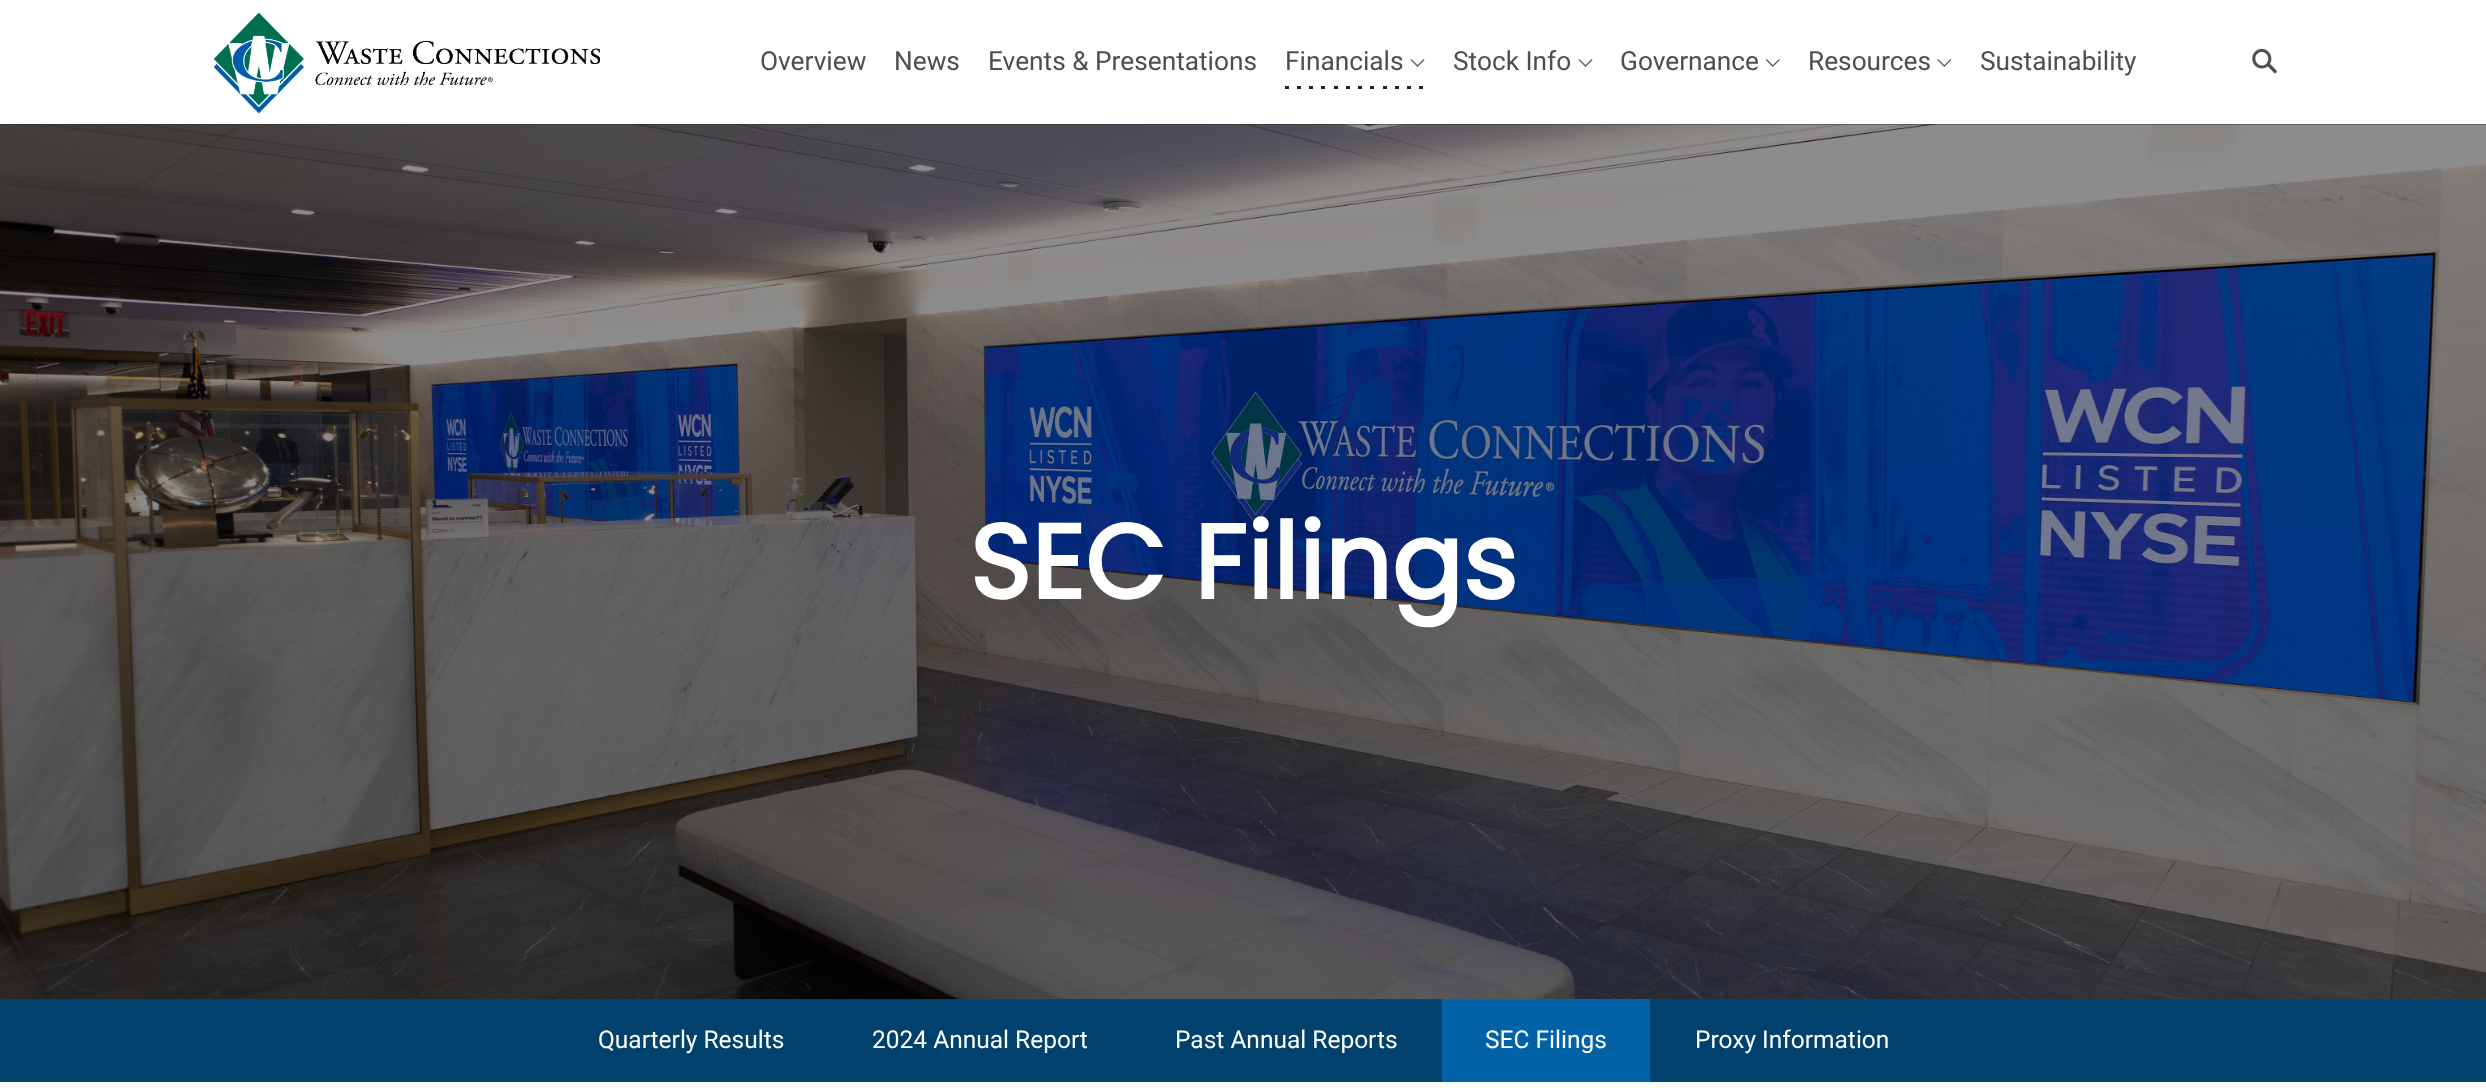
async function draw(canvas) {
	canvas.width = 2486;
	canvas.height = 1088;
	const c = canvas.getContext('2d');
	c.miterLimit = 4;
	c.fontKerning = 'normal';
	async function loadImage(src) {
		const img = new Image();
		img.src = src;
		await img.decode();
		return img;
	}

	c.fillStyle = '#fff';
	c.fillRect(0, 0, 2486, 1088);
	c.drawImage(await loadImage('img1.png'), 213, 12, 387, 102);
	c.font = '26.25px Roboto';
	c.fillStyle = '#4e4e4e';
	for (const [text, x, y] of [
		['Overview', 760, 70],
		['News', 894, 70],
		['Events & Presentations', 988, 70],
	]) {
		c.fillText(text, x, y);
	}
	for (const [x, y, w, h, color] of [
		[1285, 86, 4, 3, '#212121'],
		[1297, 86, 4, 3, '#212121'],
		[1309, 86, 4, 3, '#212121'],
		[1321, 86, 4, 3, '#212121'],
		[1334, 86, 4, 3, '#212121'],
		[1346, 86, 4, 3, '#212121'],
		[1358, 86, 4, 3, '#212121'],
		[1370, 86, 4, 3, '#212121'],
		[1383, 86, 4, 3, '#212121'],
		[1395, 86, 4, 3, '#212121'],
		[1407, 86, 4, 3, '#212121'],
		[1419, 86, 4, 3, '#212121'],
	]) {
		c.fillStyle = color;
		c.fillRect(x, y, w, h);
	}
	c.fillStyle = '#4e4e4e';
	c.fillText('Financials', 1285, 70);
	c.drawImage(await loadImage('img2.png'), 1410, 59, 15, 8);
	c.fillText('Stock Info', 1453, 70);
	c.drawImage(await loadImage('img2.png'), 1578, 59, 15, 8);
	c.fillText('Governance', 1620, 70);
	c.drawImage(await loadImage('img3.png'), 1765, 59, 15, 8);
	c.fillText('Resources', 1808, 70);
	c.drawImage(await loadImage('img4.png'), 1937, 59, 15, 8);
	c.fillText('Sustainability', 1980, 70);
	c.drawImage(await loadImage('img5.png'), 2252, 48, 25, 26);
	for (const [x, y, w, h, color] of [
		[0, 124, 2486, 1, '#2b2b2b'],
		[0, 999, 2486, 83, '#00416d'],
		[1442, 999, 208, 83, '#0162a8'],
	]) {
		c.fillStyle = color;
		c.fillRect(x, y, w, h);
	}
	c.drawImage(await loadImage('img6.png'), 0, 124, 2486, 876);
	c.font = 'bold 105px Poppins';
	c.fillStyle = '#fff';
	c.fillText('SEC Filings', 969, 599);
	c.font = '24.5px Roboto';
	for (const [text, x, y] of [
		['Quarterly Results', 598, 1048],
		['2024 Annual Report', 872, 1048],
		['Past Annual Reports', 1175, 1048],
		['SEC Filings', 1485, 1048],
		['Proxy Information', 1695, 1048],
	]) {
		c.fillText(text, x, y);
	}
}

draw(document.querySelector('canvas'));
